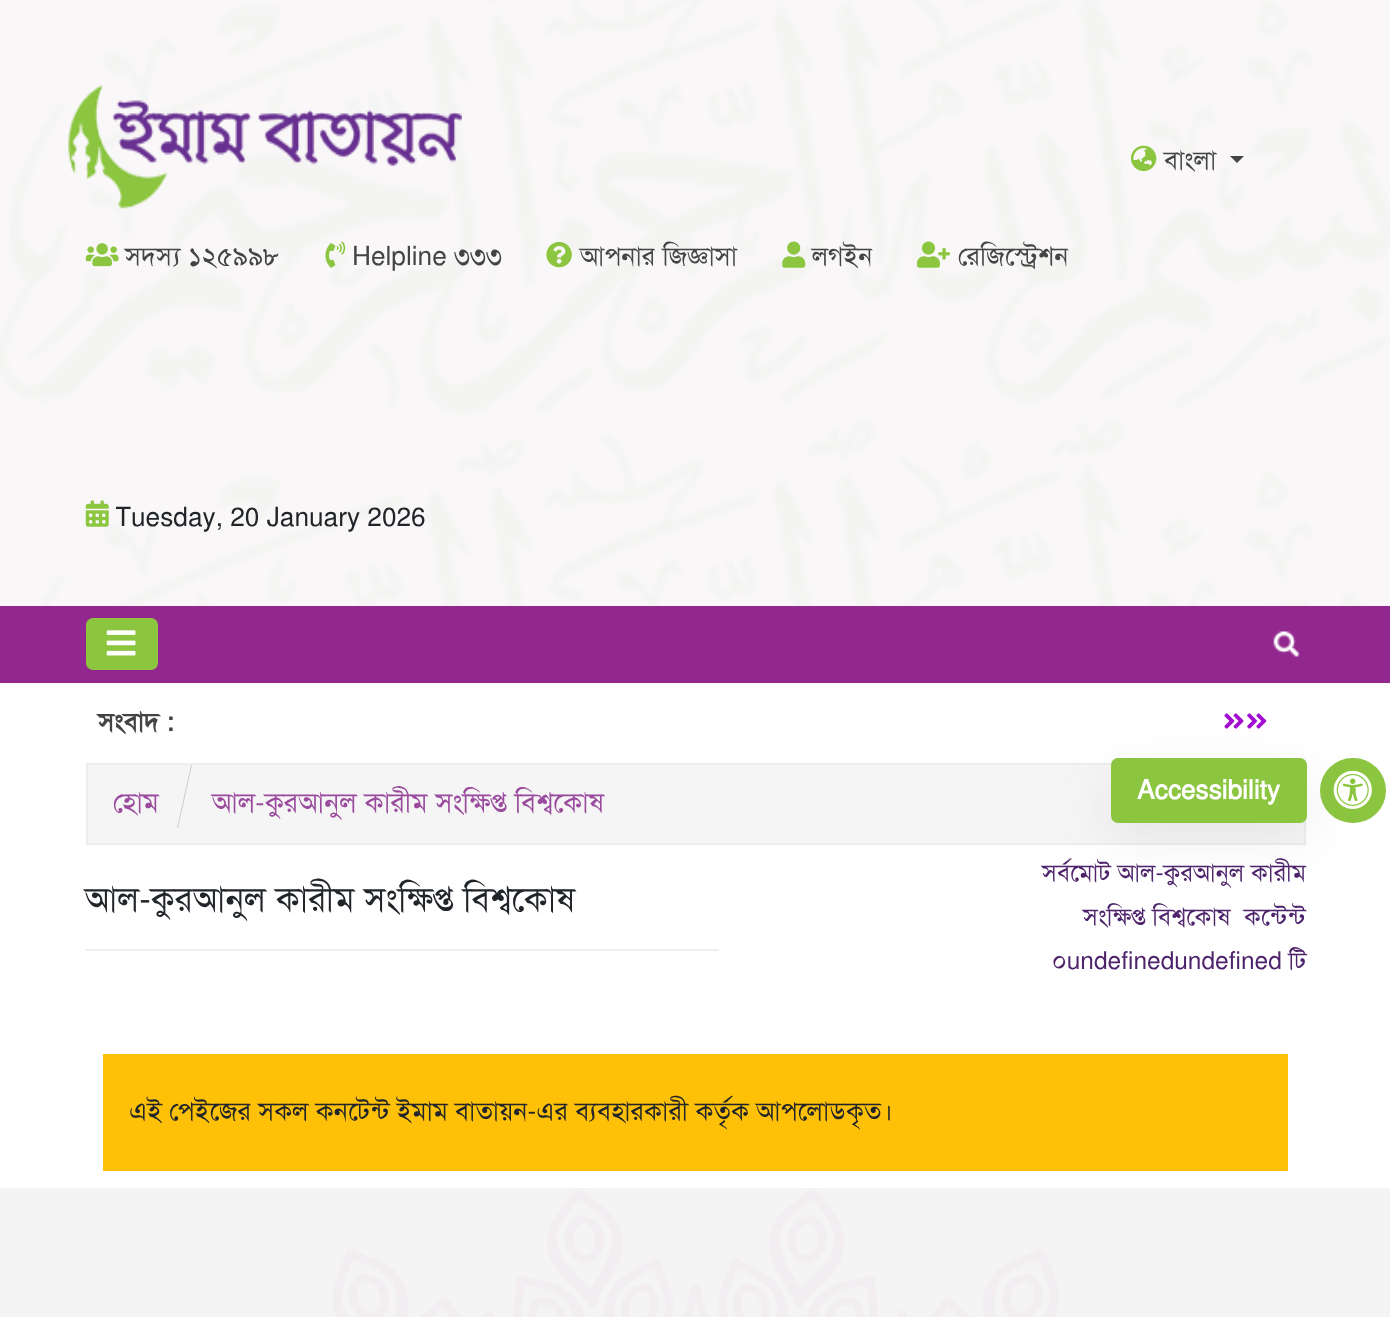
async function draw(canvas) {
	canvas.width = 1390;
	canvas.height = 1317;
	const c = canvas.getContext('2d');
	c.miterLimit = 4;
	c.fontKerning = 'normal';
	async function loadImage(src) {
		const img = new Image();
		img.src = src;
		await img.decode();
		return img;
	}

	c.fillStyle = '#fff';
	c.fillRect(0, 0, 1390, 1317);
	c.fillStyle = '#f5f4f4';
	c.fillRect(0, 1188, 1390, 129);
	c.drawImage(await loadImage('img1.png'), 0, 0, 1390, 606);
	c.drawImage(await loadImage('img2.png'), 68, 85, 394, 124);
	c.drawImage(await loadImage('img3.png'), 1130, 145, 27, 27);
	c.font = '26.25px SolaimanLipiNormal';
	c.fillStyle = '#444';
	c.fillText('বাংলা', 1164, 169);
	c.beginPath();
	c.moveTo(1230, 156);
	c.lineTo(1244, 156);
	c.lineTo(1237, 163);
	c.closePath();
	c.fill();
	c.drawImage(await loadImage('img4.png'), 85, 243, 34, 24);
	c.fillText('সদস্য ১২৫৯৯৮', 125, 265);
	c.drawImage(await loadImage('img5.png'), 325, 241, 21, 27);
	c.fillText('Helpline ৩৩৩', 352, 265);
	c.drawImage(await loadImage('img6.png'), 546, 241, 26, 27);
	c.fillText('আপনার জিজ্ঞাসা', 580, 265);
	c.drawImage(await loadImage('img7.png'), 782, 241, 24, 27);
	c.fillText('লগইন', 812, 265);
	c.drawImage(await loadImage('img8.png'), 917, 241, 33, 27);
	c.fillText('রেজিস্ট্রেশন', 958, 265);
	c.drawImage(await loadImage('img9.png'), 85, 500, 24, 27);
	c.save();
	c.beginPath();
	c.rect(116, 436, 383, 166);
	c.clip();
	c.fillStyle = '#212529';
	c.fillText('Tuesday, 20 January 2026', 115, 526);
	c.restore();
	c.fillStyle = '#92288f';
	c.fillRect(0, 606, 1390, 77);
	c.fillStyle = '#8cc640';
	c.beginPath();
	c.roundRect(87, 619, 70, 50, 6);
	c.fill();
	c.strokeStyle = '#8cc640';
	c.lineWidth = 2;
	c.stroke();
	c.drawImage(await loadImage('img10.png'), 106, 630, 30, 26);
	c.drawImage(await loadImage('img11.png'), 1273, 631, 27, 26);
	c.font = 'bold 26.25px SolaimanLipiNormal';
	c.fillStyle = '#444';
	c.fillText('সংবাদ :', 98, 731);
	c.drawImage(await loadImage('img12.png'), 1224, 713, 20, 16);
	c.drawImage(await loadImage('img13.png'), 1247, 713, 20, 16);
	c.fillStyle = '#8cc640';
	c.beginPath();
	c.roundRect(1320, 758, 66, 65, 32.5);
	c.fill();
	c.drawImage(await loadImage('img14.png'), 1333, 770, 39, 39);
	c.fillStyle = '#f5f5f5';
	c.beginPath();
	c.rect(87, 764, 1218, 80);
	c.fill();
	c.strokeStyle = '#ededed';
	c.stroke();
	c.fillStyle = '#6666661a';
	c.filter = 'blur(26px)';
	c.beginPath();
	c.roundRect(1111, 775, 196, 65, 7);
	c.fill();
	c.filter = 'none';
	c.fillStyle = '#8cc640';
	c.beginPath();
	c.roundRect(1111, 758, 196, 65, 7);
	c.fill();
	c.fillStyle = '#fff';
	c.fillText('Accessibility', 1137, 799);
	c.fillStyle = '#ccc';
	c.beginPath();
	c.moveTo(177, 765);
	c.lineTo(192, 765);
	c.lineTo(178, 828);
	c.lineTo(177, 828);
	c.closePath();
	c.fill();
	c.font = '28px SolaimanLipiNormal';
	c.fillStyle = '#9a4b9e';
	c.fillText('হোম', 113, 812);
	c.fillStyle = '#f5f5f5';
	c.beginPath();
	c.moveTo(177, 765);
	c.lineTo(191, 765);
	c.lineTo(177, 828);
	c.closePath();
	c.fill();
	c.fillStyle = '#9a4b9e';
	c.fillText('আল-কুরআনুল কারীম সংক্ষিপ্ত বিশ্বকোষ', 212, 812);
	c.fillStyle = '#eee';
	c.fillRect(86, 949, 633, 2);
	c.font = '35px SolaimanLipiNormal';
	c.fillStyle = '#212529';
	c.fillText('আল-কুরআনুল কারীম সংক্ষিপ্ত বিশ্বকোষ', 85, 911);
	c.font = '24.5px SolaimanLipiNormal';
	c.fillStyle = '#4d236b';
	for (const [text, x, y] of [
		['সর্বমোট আল-কুরআনুল কারীম', 1042, 881],
		['সংক্ষিপ্ত বিশ্বকোষ', 1083, 925],
		['কন্টেন্ট', 1244, 925],
		['০undefinedundefined টি', 1052, 969],
	]) {
		c.fillText(text, x, y);
	}
	c.fillStyle = '#ffc107';
	c.fillRect(103, 1054, 1185, 117);
	c.font = '26.25px SolaimanLipiNormal';
	c.fillStyle = '#212529';
	c.fillText('এই পেইজের সকল কনটেন্ট ইমাম বাতায়ন-এর ব্যবহারকারী কর্তৃক আপলোডকৃত।', 129, 1120);
	c.drawImage(await loadImage('img15.png'), 333, 1188, 726, 129);
}

draw(document.querySelector('canvas'));
